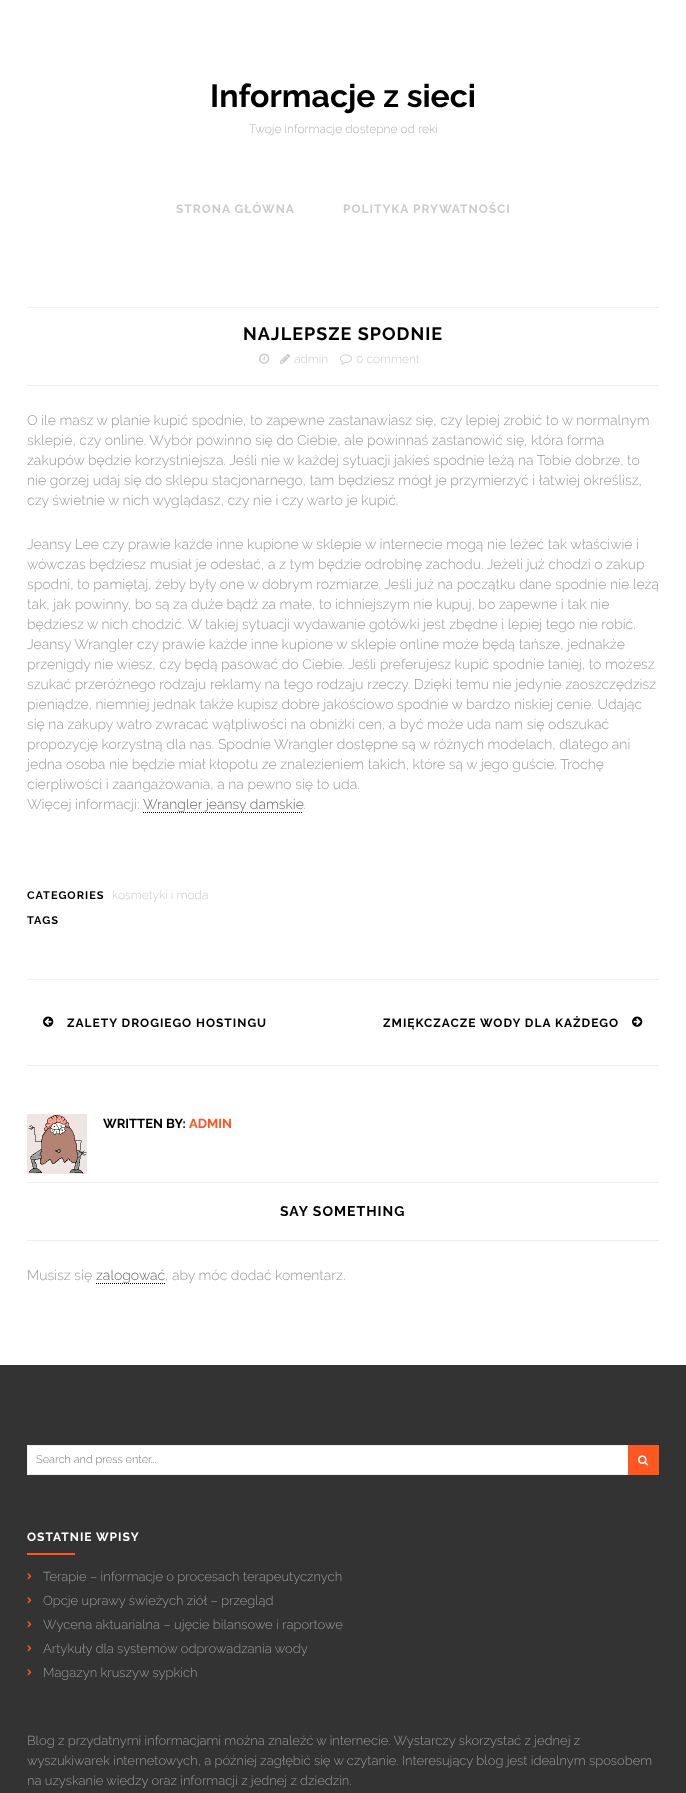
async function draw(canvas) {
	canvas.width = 686;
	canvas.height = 1793;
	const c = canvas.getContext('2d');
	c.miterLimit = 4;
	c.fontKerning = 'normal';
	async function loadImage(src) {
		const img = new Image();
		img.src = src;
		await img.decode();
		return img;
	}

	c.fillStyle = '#fff';
	c.fillRect(0, 0, 686, 1793);
	c.font = 'bold 32px Raleway';
	c.fillStyle = '#000';
	c.fillText('Informacje z sieci', 210, 107);
	c.font = '300 12px Raleway';
	c.fillStyle = '#b3b3b3';
	c.fillText('Twoje informacje dostepne od reki', 249, 133);
	c.letterSpacing = '1px';
	c.font = 'bold 12px Raleway';
	c.fillStyle = '#ccc';
	c.fillText('STRONA GŁÓWNA', 176, 213);
	c.fillText('POLITYKA PRYWATNOŚCI', 343, 213);
	c.fillStyle = '#eee';
	c.fillRect(27, 307, 632, 1);
	c.fillRect(27, 385, 632, 1);
	c.font = 'bold 18px Raleway';
	c.fillStyle = '#000';
	c.fillText('NAJLEPSZE SPODNIE', 243, 340);
	c.drawImage(await loadImage('img1.png'), 259, 353, 11, 11);
	c.drawImage(await loadImage('img2.png'), 280, 353, 10, 11);
	c.letterSpacing = '0px';
	c.font = '300 12px Raleway';
	c.fillStyle = '#ccc';
	c.fillText('admin', 294, 363);
	c.drawImage(await loadImage('img3.png'), 340, 354, 12, 11);
	c.fillText('0 comment', 356, 363);
	c.font = '300 14px Raleway';
	c.fillStyle = '#999';
	for (const [text, x, y] of [
		['O ile masz w planie kupić spodnie, to zapewne zastanawiasz się, czy lepiej zrobić to w normalnym', 27, 425],
		['sklepie, czy online. Wybór powinno się do Ciebie, ale powinnaś zastanowić się, która forma', 27, 445],
		['zakupów będzie korzystniejsza. Jeśli nie w każdej sytuacji jakieś spodnie leżą na Tobie dobrze, to', 27, 465],
		['nie gorzej udaj się do sklepu stacjonarnego, tam będziesz mógł je przymierzyć i łatwiej określisz,', 27, 485],
		['czy świetnie w nich wyglądasz, czy nie i czy warto je kupić.', 27, 505],
		['Jeansy Lee czy prawie każde inne kupione w sklepie w internecie mogą nie leżeć tak właściwie i', 27, 549],
		['wówczas będziesz musiał je odesłać, a z tym będzie odrobinę zachodu. Jeżeli już chodzi o zakup', 27, 569],
		['spodni, to pamiętaj, żeby były one w dobrym rozmiarze. Jeśli już na początku dane spodnie nie leżą', 27, 589],
		['tak, jak powinny, bo są za duże bądź za małe, to ichniejszym nie kupuj, bo zapewne i tak nie', 27, 609],
		['będziesz w nich chodzić. W takiej sytuacji wydawanie gotówki jest zbędne i lepiej tego nie robić.', 27, 629],
		['Jeansy Wrangler czy prawie każde inne kupione w sklepie online może będą tańsze, jednakże', 27, 649],
		['przenigdy nie wiesz, czy będą pasować do Ciebie. Jeśli preferujesz kupić spodnie taniej, to możesz', 27, 669],
		['szukać przeróżnego rodzaju reklamy na tego rodzaju rzeczy. Dzięki temu nie jedynie zaoszczędzisz', 27, 689],
		['pieniądze, niemniej jednak także kupisz dobre jakościowo spodnie w bardzo niskiej cenie. Udając', 27, 709],
		['się na zakupy watro zwracać wątpliwości na obniżki cen, a być może uda nam się odszukać', 27, 729],
		['propozycję korzystną dla nas. Spodnie Wrangler dostępne są w różnych modelach, dlatego ani', 27, 749],
		['jedna osoba nie będzie miał kłopotu ze znalezieniem takich, które są w jego guście. Trochę', 27, 769],
		['cierpliwości i zaangażowania, a na pewno się to uda.', 27, 789],
		['Więcej informacji:', 27, 809],
	]) {
		c.fillText(text, x, y);
	}
	c.beginPath();
	c.moveTo(143, 812.5);
	c.lineTo(303, 812.5);
	c.strokeStyle = '#000';
	c.setLineDash([1, 1]);
	c.stroke();
	c.fillStyle = '#666';
	c.fillText('Wrangler jeansy damskie', 143, 809);
	c.fillStyle = '#999';
	c.fillText('.', 303, 809);
	c.letterSpacing = '1px';
	c.font = 'bold 11px Raleway';
	c.fillStyle = '#000';
	c.fillText('CATEGORIES', 27, 899);
	c.letterSpacing = '0px';
	c.font = '300 12px Raleway';
	c.fillStyle = '#ccc';
	c.fillText('kosmetyki i moda', 112, 899);
	c.letterSpacing = '1px';
	c.font = 'bold 11px Raleway';
	c.fillStyle = '#000';
	c.fillText('TAGS', 27, 924);
	c.fillStyle = '#eee';
	c.fillRect(27, 979, 632, 1);
	c.fillRect(27, 1065, 632, 1);
	c.drawImage(await loadImage('img4.png'), 43, 1016, 11, 11);
	c.font = 'bold 12px Raleway';
	c.fillStyle = '#000';
	c.fillText('ZALETY DROGIEGO HOSTINGU', 67, 1027);
	c.fillText('ZMIĘKCZACZE WODY DLA KAŻDEGO', 383, 1027);
	c.drawImage(await loadImage('img5.png'), 632, 1016, 11, 11);
	c.drawImage(await loadImage('img6.png'), 27, 1114, 60, 60);
	c.letterSpacing = '0px';
	c.font = 'bold 13px Raleway';
	c.fillText('WRITTEN BY:', 103, 1128);
	c.fillStyle = '#ff5722';
	c.fillText('ADMIN', 189, 1128);
	c.fillStyle = '#eee';
	c.fillRect(27, 1182, 632, 1);
	c.fillRect(27, 1240, 632, 1);
	c.letterSpacing = '1px';
	c.font = 'bold 14px Raleway';
	c.fillStyle = '#000';
	c.fillText('SAY SOMETHING', 280, 1216);
	c.letterSpacing = '0px';
	c.font = '300 14px Raleway';
	c.fillStyle = '#999';
	c.fillText('Musisz się', 27, 1280);
	c.beginPath();
	c.moveTo(96, 1283.5);
	c.lineTo(165, 1283.5);
	c.stroke();
	c.fillStyle = '#666';
	c.fillText('zalogować', 96, 1280);
	c.fillStyle = '#999';
	c.fillText(', aby móc dodać komentarz.', 165, 1280);
	c.fillStyle = '#333';
	c.fillRect(0, 1365, 686, 428);
	c.fillStyle = '#fff';
	c.fillRect(28, 1446, 600, 28);
	c.strokeStyle = '#eee';
	c.setLineDash([]);
	c.strokeRect(27.5, 1445.5, 631, 29);
	c.font = '300 11px Raleway';
	c.fillStyle = '#757575';
	c.fillText('Search and press enter...', 36, 1463);
	c.fillStyle = '#ff5722';
	c.fillRect(628, 1445, 31, 30);
	c.drawImage(await loadImage('img7.png'), 638, 1455, 11, 11);
	c.letterSpacing = '1px';
	c.font = 'bold 12px Raleway';
	c.fillStyle = '#fff';
	c.fillText('OSTATNIE WPISY', 27, 1541);
	c.fillStyle = '#ff5722';
	c.fillRect(27, 1553, 48, 2);
	c.drawImage(await loadImage('img8.png'), 27, 1573, 5, 7);
	c.letterSpacing = '0px';
	c.font = '300 13px Raleway';
	c.fillStyle = '#999';
	c.fillText('Terapie – informacje o procesach terapeutycznych', 43, 1581);
	c.drawImage(await loadImage('img8.png'), 27, 1597, 5, 7);
	c.fillText('Opcje uprawy świeżych ziół – przegląd', 43, 1605);
	c.drawImage(await loadImage('img8.png'), 27, 1621, 5, 7);
	c.fillText('Wycena aktuarialna – ujęcie bilansowe i raportowe', 43, 1629);
	c.drawImage(await loadImage('img8.png'), 27, 1645, 5, 7);
	c.fillText('Artykuły dla systemów odprowadzania wody', 43, 1653);
	c.drawImage(await loadImage('img8.png'), 27, 1669, 5, 7);
	for (const [text, x, y] of [
		['Magazyn kruszyw sypkich', 43, 1677],
		['Blog z przydatnymi informacjami można znaleźć w internecie. Wystarczy skorzystać z jednej z', 27, 1745],
		['wyszukiwarek internetowych, a później zagłębić się w czytanie. Interesujący blog jest idealnym sposobem', 27, 1765],
		['na uzyskanie wiedzy oraz informacji z jednej z dziedzin.', 27, 1785],
	]) {
		c.fillText(text, x, y);
	}
}

draw(document.querySelector('canvas'));
